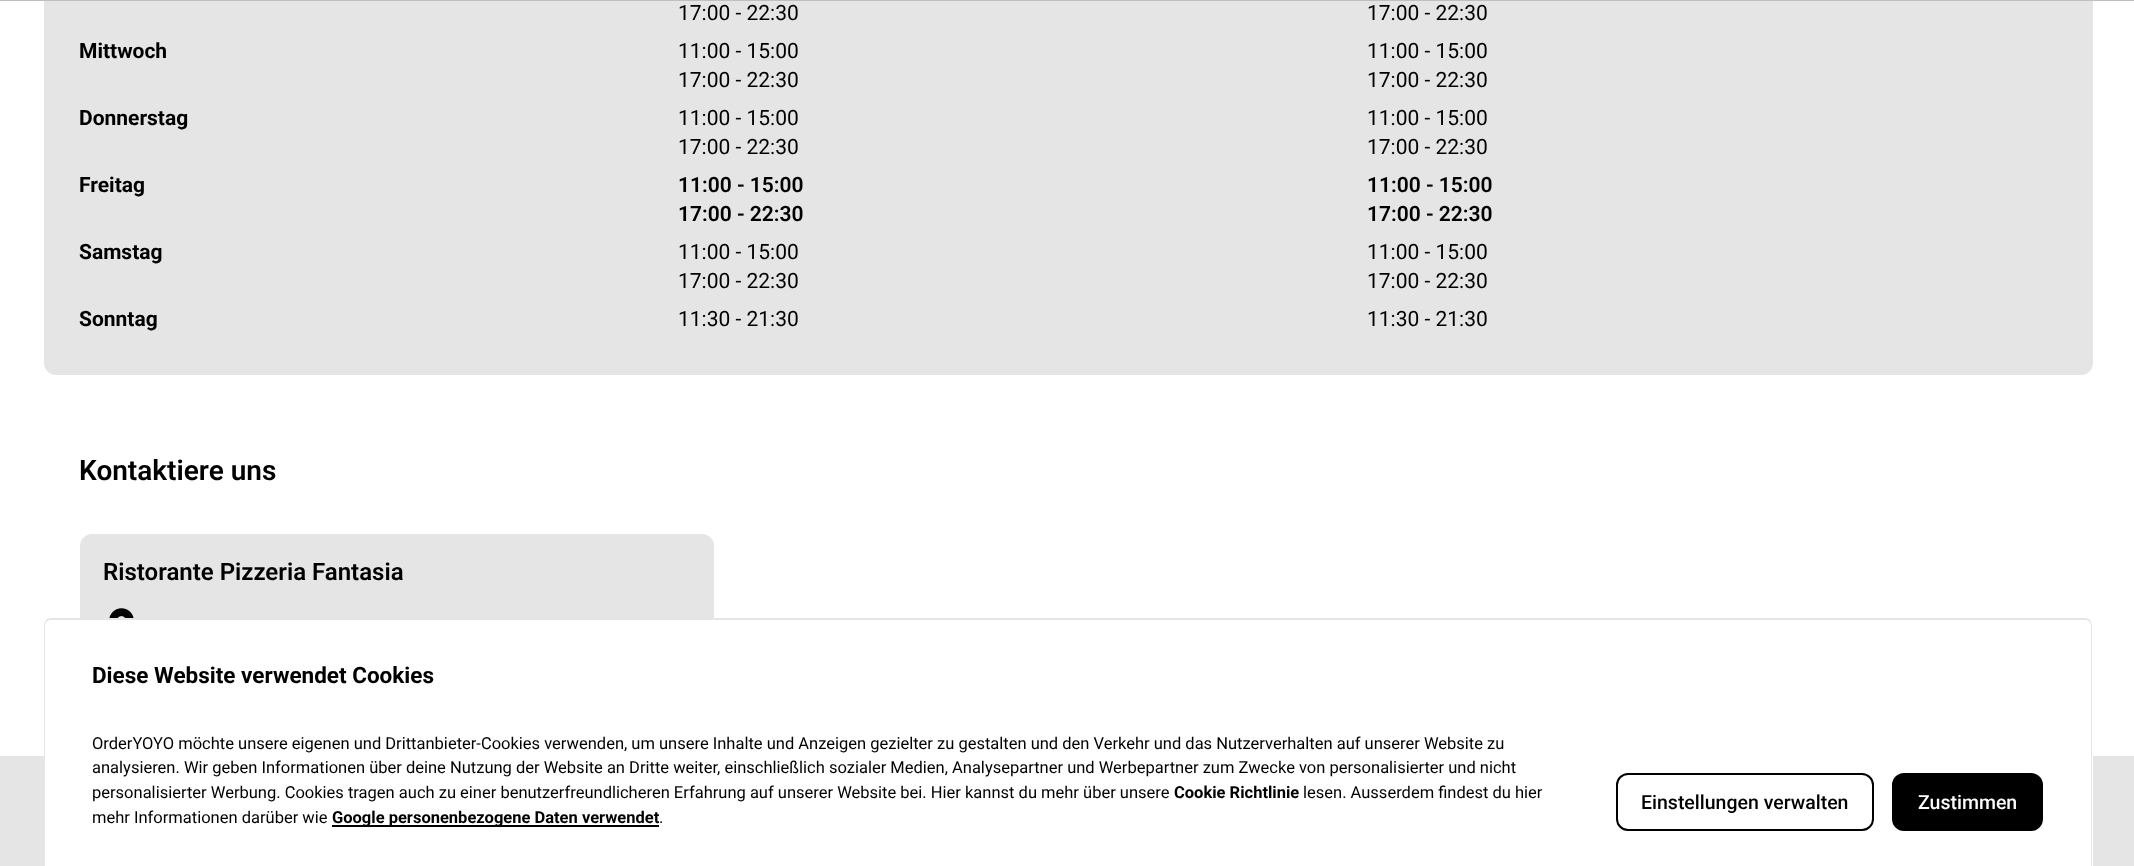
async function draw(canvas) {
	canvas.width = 2134;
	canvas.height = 866;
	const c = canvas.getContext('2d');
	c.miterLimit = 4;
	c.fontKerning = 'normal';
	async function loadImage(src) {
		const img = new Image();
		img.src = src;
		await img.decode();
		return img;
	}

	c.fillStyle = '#fff';
	c.fillRect(0, 0, 2134, 866);
	c.fillStyle = '#e5e5e5';
	c.beginPath();
	c.roundRect(44, -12, 2049, 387, 12);
	c.fill();
	c.fillStyle = '#bfbfbf';
	c.fillRect(0, 0, 2134, 1);
	c.font = '21px Roboto';
	c.fillStyle = '#000';
	c.fillText('17:00 - 22:30', 678, 20);
	c.fillText('17:00 - 22:30', 1367, 20);
	c.font = 'bold 21px Roboto';
	c.fillText('Mittwoch', 79, 58);
	c.font = '21px Roboto';
	for (const [text, x, y] of [
		['11:00 - 15:00', 678, 58],
		['17:00 - 22:30', 678, 87],
		['11:00 - 15:00', 1367, 58],
		['17:00 - 22:30', 1367, 87],
	]) {
		c.fillText(text, x, y);
	}
	c.font = 'bold 21px Roboto';
	c.fillText('Donnerstag', 79, 125);
	c.font = '21px Roboto';
	for (const [text, x, y] of [
		['11:00 - 15:00', 678, 125],
		['17:00 - 22:30', 678, 154],
		['11:00 - 15:00', 1367, 125],
		['17:00 - 22:30', 1367, 154],
	]) {
		c.fillText(text, x, y);
	}
	c.font = 'bold 21px Roboto';
	c.fillText('Freitag', 79, 192);
	c.font = '600 21px Roboto';
	for (const [text, x, y] of [
		['11:00 - 15:00', 678, 192],
		['17:00 - 22:30', 678, 221],
		['11:00 - 15:00', 1367, 192],
		['17:00 - 22:30', 1367, 221],
	]) {
		c.fillText(text, x, y);
	}
	c.font = 'bold 21px Roboto';
	c.fillText('Samstag', 79, 259);
	c.font = '21px Roboto';
	for (const [text, x, y] of [
		['11:00 - 15:00', 678, 259],
		['17:00 - 22:30', 678, 288],
		['11:00 - 15:00', 1367, 259],
		['17:00 - 22:30', 1367, 288],
	]) {
		c.fillText(text, x, y);
	}
	c.font = 'bold 21px Roboto';
	c.fillText('Sonntag', 79, 326);
	c.font = '21px Roboto';
	c.fillText('11:30 - 21:30', 678, 326);
	c.fillText('11:30 - 21:30', 1367, 326);
	c.font = '600 28px Roboto';
	c.fillText('Kontaktiere uns', 79, 480);
	c.fillStyle = '#e5e5e5';
	c.beginPath();
	c.roundRect(80, 534, 634, 174, 12);
	c.fill();
	c.font = '600 24px Roboto';
	c.fillStyle = '#000';
	c.fillText('Ristorante Pizzeria Fantasia', 103, 580);
	c.drawImage(await loadImage('img1.png'), 109, 608, 25, 10);
	c.fillStyle = '#e5e5e5';
	c.fillRect(0, 756, 2134, 110);
	c.fillStyle = '#fff';
	c.beginPath();
	c.moveTo(52, 618);
	c.lineTo(2085, 618);
	c.bezierCurveTo(2089.5, 618, 2093, 621.5, 2093, 626);
	c.lineTo(2093, 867);
	c.lineTo(44, 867);
	c.lineTo(44, 626);
	c.bezierCurveTo(44, 621.5, 47.5, 618, 52, 618);
	c.closePath();
	c.fill();
	c.fillStyle = '#e5e5e5';
	c.beginPath();
	c.moveTo(51, 618);
	c.lineTo(2085, 618);
	c.bezierCurveTo(2089, 618, 2092, 621, 2092, 626);
	c.lineTo(2092, 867);
	c.lineTo(44, 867);
	c.lineTo(44, 626);
	c.bezierCurveTo(44, 621, 47, 618, 51, 618);
	c.closePath();
	c.moveTo(51, 620);
	c.lineTo(2085, 620);
	c.bezierCurveTo(2088, 620, 2091, 622, 2091, 626);
	c.lineTo(2091, 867);
	c.lineTo(45, 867);
	c.lineTo(45, 626);
	c.bezierCurveTo(45, 622, 48, 620, 51, 620);
	c.closePath();
	c.fill('evenodd');
	c.font = 'bold 22.5px Roboto';
	c.fillStyle = '#000';
	c.fillText('Diese Website verwendet Cookies', 92, 683);
	c.font = '16.5px Roboto';
	for (const [text, x, y] of [
		['OrderYOYO möchte unsere eigenen und Drittanbieter-Cookies verwenden, um unsere Inhalte und Anzeigen gezielter zu gestalten und den Verkehr und das Nutzerverhalten auf unserer Website zu', 92, 749],
		['analysieren. Wir geben Informationen über deine Nutzung der Website an Dritte weiter, einschließlich sozialer Medien, Analysepartner und Werbepartner zum Zwecke von personalisierter und nicht', 92, 773],
		['personalisierter Werbung. Cookies tragen auch zu einer benutzerfreundlicheren Erfahrung auf unserer Website bei. Hier kannst du mehr über unsere', 92, 798],
	]) {
		c.fillText(text, x, y);
	}
	c.font = 'bold 16.5px Roboto';
	c.fillText('Cookie Richtlinie', 1174, 798);
	c.font = '16.5px Roboto';
	c.fillText('lesen. Ausserdem findest du hier', 1303, 798);
	c.fillText('mehr Informationen darüber wie', 92, 823);
	c.fillRect(332, 825, 327, 2);
	c.font = 'bold 16.5px Roboto';
	c.fillText('Google personenbezogene Daten verwendet', 332, 823);
	c.font = '16.5px Roboto';
	c.fillText('.', 659, 823);
	c.beginPath();
	c.roundRect(1617, 774, 256, 56, 11);
	c.strokeStyle = '#000';
	c.lineWidth = 2;
	c.stroke();
	c.font = '500 19.5px Roboto';
	c.fillText('Einstellungen verwalten', 1641, 809);
	c.beginPath();
	c.roundRect(1893, 774, 149, 56, 11);
	c.fill();
	c.stroke();
	c.fillStyle = '#fff';
	c.fillText('Zustimmen', 1918, 809);
}

draw(document.querySelector('canvas'));
